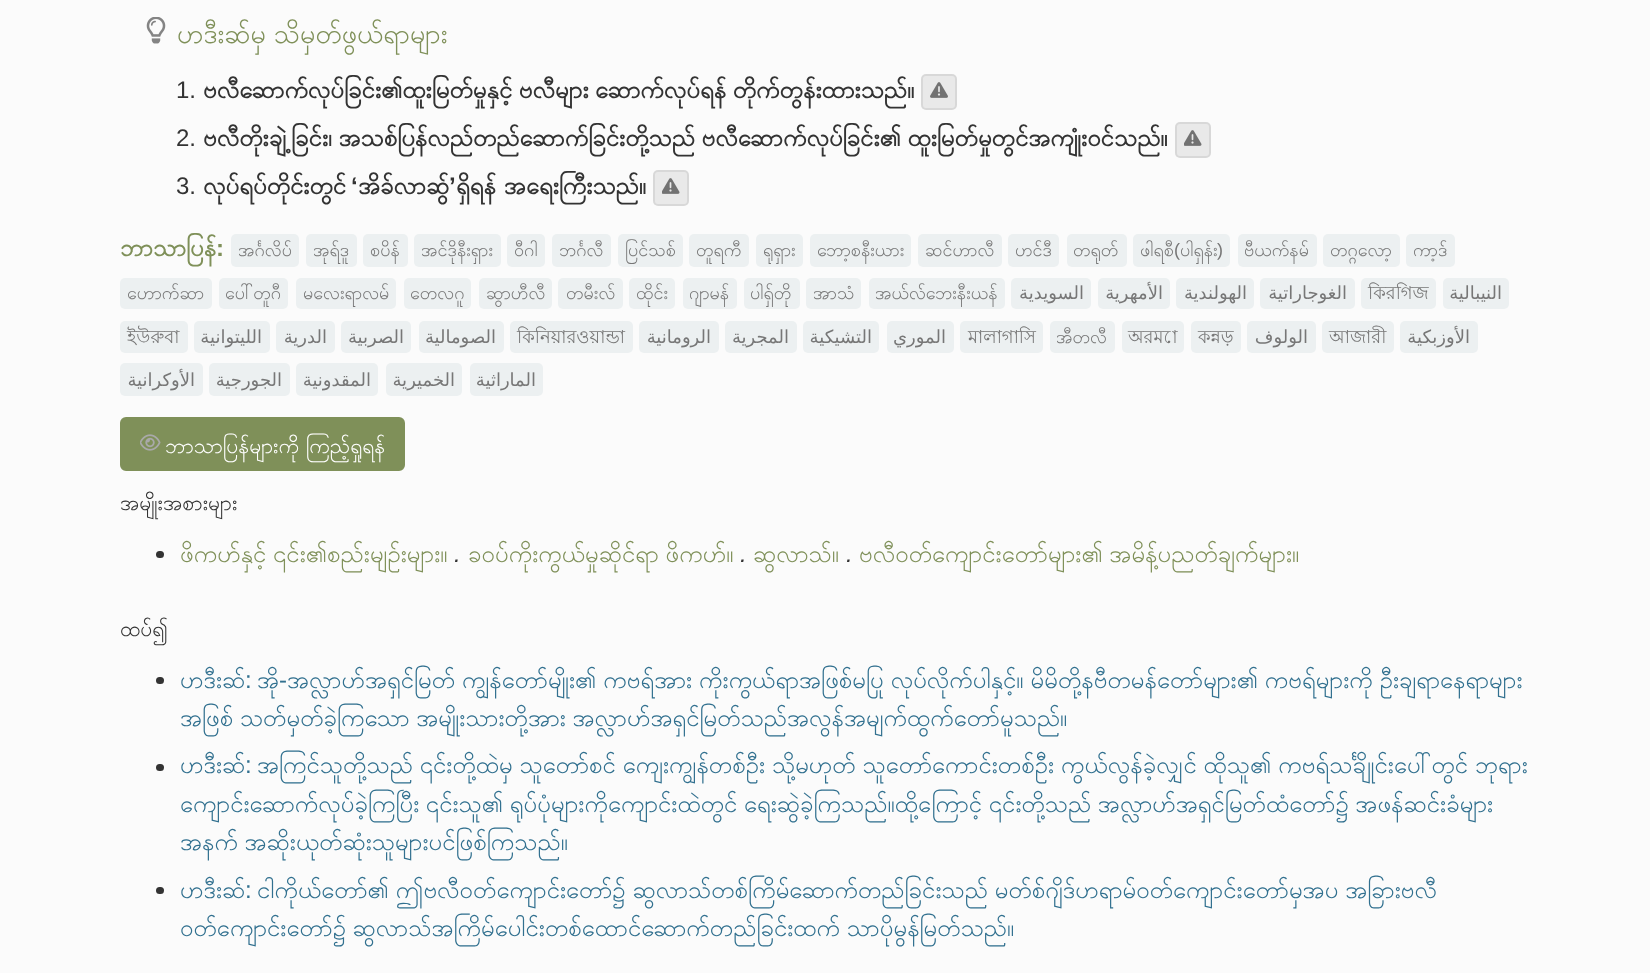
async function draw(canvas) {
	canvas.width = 1650;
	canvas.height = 973;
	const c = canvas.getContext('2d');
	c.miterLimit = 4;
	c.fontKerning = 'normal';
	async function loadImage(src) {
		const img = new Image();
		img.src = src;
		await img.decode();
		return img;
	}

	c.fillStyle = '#fbfbfb';
	c.fillRect(0, 0, 1650, 973);
	c.drawImage(await loadImage('img1.png'), 146, 17, 20, 27);
	c.wordSpacing = '-2px';
	c.font = '27px Padauk';
	c.fillStyle = '#7f9059';
	c.fillText('ဟဒီးဆ်မှ သိမှတ်ဖွယ်ရာများ', 177, 43);
	c.wordSpacing = '0px';
	c.font = '24px Liberation Sans';
	c.fillStyle = '#333';
	c.fillText('1.', 176, 98);
	c.wordSpacing = '-2.25px';
	c.font = 'bold 24px Padauk';
	c.fillText('ဗလီဆောက်လုပ်ခြင်း၏ထူးမြတ်မှုနှင့် ဗလီများ ဆောက်လုပ်ရန် တိုက်တွန်းထားသည်။', 203, 98);
	c.fillStyle = '#e9e9e9';
	c.beginPath();
	c.roundRect(921, 74, 36, 36, 5);
	c.fill();
	c.beginPath();
	c.roundRect(922, 75, 34, 34, 4);
	c.strokeStyle = '#00000012';
	c.lineWidth = 2;
	c.stroke();
	c.drawImage(await loadImage('img2.png'), 930, 82, 18, 16);
	c.wordSpacing = '0px';
	c.font = '24px Liberation Sans';
	c.fillStyle = '#333';
	c.fillText('2.', 176, 146);
	c.wordSpacing = '-2.25px';
	c.font = 'bold 24px Padauk';
	c.fillText('ဗလီတိုးချဲ့ခြင်း၊ အသစ်ပြန်လည်တည်ဆောက်ခြင်းတို့သည် ဗလီဆောက်လုပ်ခြင်း၏ ထူးမြတ်မှုတွင်အကျုံးဝင်သည်။', 203, 146);
	c.fillStyle = '#e9e9e9';
	c.beginPath();
	c.roundRect(1175, 122, 36, 36, 5);
	c.fill();
	c.beginPath();
	c.roundRect(1176, 123, 34, 34, 4);
	c.stroke();
	c.drawImage(await loadImage('img3.png'), 1184, 130, 18, 16);
	c.wordSpacing = '0px';
	c.font = '24px Liberation Sans';
	c.fillStyle = '#333';
	c.fillText('3.', 176, 194);
	c.font = 'bold 24px Padauk';
	c.fillText('လုပ်ရပ်တိုင်းတွင်', 203, 194);
	c.font = 'bold 24px Liberation Sans';
	c.fillText('‘', 351, 194);
	c.font = 'bold 24px Padauk';
	c.fillText('အိခ်လာဆ်ွ', 358, 194);
	c.font = 'bold 24px Liberation Sans';
	c.fillText('’', 449, 194);
	c.wordSpacing = '-1px';
	c.font = 'bold 24px Padauk';
	c.fillText('ရှိရန် အရေးကြီးသည်။', 456, 194);
	c.fillStyle = '#e9e9e9';
	c.beginPath();
	c.roundRect(653, 170, 36, 36, 5);
	c.fill();
	c.beginPath();
	c.roundRect(654, 171, 34, 34, 4);
	c.stroke();
	c.drawImage(await loadImage('img3.png'), 662, 178, 18, 16);
	c.wordSpacing = '0px';
	c.fillStyle = '#7f9059';
	c.fillText('ဘာသာပြန်', 120, 256);
	c.font = 'bold 24px Liberation Sans';
	c.fillText(':', 216, 256);
	c.fillStyle = '#ecf0f1';
	c.beginPath();
	c.roundRect(231, 234, 68, 33, 5);
	c.fill();
	c.font = '18px Padauk';
	c.fillStyle = '#777';
	c.fillText('အင်္ဂလိပ်', 238, 256);
	c.fillStyle = '#ecf0f1';
	c.beginPath();
	c.roundRect(306, 234, 51, 33, 5);
	c.fill();
	c.fillStyle = '#777';
	c.fillText('အုရ်ဒူ', 313, 256);
	c.fillStyle = '#ecf0f1';
	c.beginPath();
	c.roundRect(363, 234, 45, 33, 5);
	c.fill();
	c.fillStyle = '#777';
	c.fillText('စပိန်', 370, 256);
	c.fillStyle = '#ecf0f1';
	c.beginPath();
	c.roundRect(414, 234, 87, 33, 5);
	c.fill();
	c.fillStyle = '#777';
	c.fillText('အင်ဒိုနီးရှား', 421, 256);
	c.fillStyle = '#ecf0f1';
	c.beginPath();
	c.roundRect(507, 234, 38, 33, 5);
	c.fill();
	c.fillStyle = '#777';
	c.fillText('ဝီဂါ', 514, 256);
	c.fillStyle = '#ecf0f1';
	c.beginPath();
	c.roundRect(552, 234, 59, 33, 5);
	c.fill();
	c.fillStyle = '#777';
	c.fillText('ဘင်္ဂလီ', 559, 256);
	c.fillStyle = '#ecf0f1';
	c.beginPath();
	c.roundRect(618, 234, 65, 33, 5);
	c.fill();
	c.fillStyle = '#777';
	c.fillText('ပြင်သစ်', 625, 256);
	c.fillStyle = '#ecf0f1';
	c.beginPath();
	c.roundRect(689, 234, 60, 33, 5);
	c.fill();
	c.fillStyle = '#777';
	c.fillText('တူရကီ', 696, 256);
	c.fillStyle = '#ecf0f1';
	c.beginPath();
	c.roundRect(756, 234, 47, 33, 5);
	c.fill();
	c.fillStyle = '#777';
	c.fillText('ရုရှား', 763, 256);
	c.fillStyle = '#ecf0f1';
	c.beginPath();
	c.roundRect(810, 234, 101, 33, 5);
	c.fill();
	c.fillStyle = '#777';
	c.fillText('ဘော့စနီးယား', 817, 256);
	c.fillStyle = '#ecf0f1';
	c.beginPath();
	c.roundRect(918, 234, 84, 33, 5);
	c.fill();
	c.fillStyle = '#777';
	c.fillText('ဆင်ဟာလီ', 925, 256);
	c.fillStyle = '#ecf0f1';
	c.beginPath();
	c.roundRect(1008, 234, 51, 33, 5);
	c.fill();
	c.fillStyle = '#777';
	c.fillText('ဟင်ဒီ', 1015, 256);
	c.fillStyle = '#ecf0f1';
	c.beginPath();
	c.roundRect(1067, 234, 60, 33, 5);
	c.fill();
	c.fillStyle = '#777';
	c.fillText('တရုတ်', 1073, 256);
	c.fillStyle = '#ecf0f1';
	c.beginPath();
	c.roundRect(1133, 234, 97, 33, 5);
	c.fill();
	c.fillStyle = '#777';
	c.fillText('ဖါရစီ', 1140, 256);
	c.font = '18px Liberation Sans';
	c.fillText('(', 1174, 256);
	c.font = '18px Padauk';
	c.fillText('ပါရှန်း', 1180, 256);
	c.font = '18px Liberation Sans';
	c.fillText(')', 1217, 256);
	c.fillStyle = '#ecf0f1';
	c.beginPath();
	c.roundRect(1238, 234, 79, 33, 5);
	c.fill();
	c.font = '18px Padauk';
	c.fillStyle = '#777';
	c.fillText('ဗီယက်နမ်', 1244, 256);
	c.fillStyle = '#ecf0f1';
	c.beginPath();
	c.roundRect(1323, 234, 77, 33, 5);
	c.fill();
	c.fillStyle = '#777';
	c.fillText('တဂ္ဂလော့', 1330, 256);
	c.fillStyle = '#ecf0f1';
	c.beginPath();
	c.roundRect(1406, 234, 49, 33, 5);
	c.fill();
	c.fillStyle = '#777';
	c.fillText('ကာ့ဒ်', 1413, 256);
	c.fillStyle = '#ecf0f1';
	c.beginPath();
	c.roundRect(120, 278, 92, 31, 5);
	c.fill();
	c.fillStyle = '#777';
	c.fillText('ဟောက်ဆာ', 127, 299);
	c.fillStyle = '#ecf0f1';
	c.beginPath();
	c.roundRect(219, 278, 69, 31, 5);
	c.fill();
	c.fillStyle = '#777';
	c.fillText('ပေါ်တူဂီ', 225, 299);
	c.fillStyle = '#ecf0f1';
	c.beginPath();
	c.roundRect(296, 278, 100, 31, 5);
	c.fill();
	c.fillStyle = '#777';
	c.fillText('မလေးရာလမ်', 303, 299);
	c.fillStyle = '#ecf0f1';
	c.beginPath();
	c.roundRect(404, 278, 67, 31, 5);
	c.fill();
	c.fillStyle = '#777';
	c.fillText('တေလဂူ', 410, 299);
	c.fillStyle = '#ecf0f1';
	c.beginPath();
	c.roundRect(479, 278, 73, 31, 5);
	c.fill();
	c.fillStyle = '#777';
	c.fillText('ဆွာဟီလီ', 486, 299);
	c.fillStyle = '#ecf0f1';
	c.beginPath();
	c.roundRect(558, 278, 65, 31, 5);
	c.fill();
	c.fillStyle = '#777';
	c.fillText('တမီးလ်', 566, 299);
	c.fillStyle = '#ecf0f1';
	c.beginPath();
	c.roundRect(629, 278, 46, 31, 5);
	c.fill();
	c.fillStyle = '#777';
	c.fillText('ထိုင်း', 636, 299);
	c.fillStyle = '#ecf0f1';
	c.beginPath();
	c.roundRect(683, 278, 54, 31, 5);
	c.fill();
	c.fillStyle = '#777';
	c.fillText('ဂျာမန်', 689, 299);
	c.fillStyle = '#ecf0f1';
	c.beginPath();
	c.roundRect(744, 278, 56, 31, 5);
	c.fill();
	c.fillStyle = '#777';
	c.fillText('ပါရှ်တို', 750, 299);
	c.fillStyle = '#ecf0f1';
	c.beginPath();
	c.roundRect(806, 278, 55, 31, 5);
	c.fill();
	c.fillStyle = '#777';
	c.fillText('အာသံ', 813, 299);
	c.fillStyle = '#ecf0f1';
	c.beginPath();
	c.roundRect(869, 278, 136, 31, 5);
	c.fill();
	c.fillStyle = '#777';
	c.fillText('အယ်လ်ဘေးနီးယန်', 875, 299);
	c.fillStyle = '#ecf0f1';
	c.beginPath();
	c.roundRect(1011, 278, 80, 31, 5);
	c.fill();
	c.direction = 'rtl';
	c.font = '18px DejaVu Sans';
	c.fillStyle = '#777';
	c.fillText('السويدية', 1084, 299);
	c.fillStyle = '#ecf0f1';
	c.beginPath();
	c.roundRect(1098, 278, 72, 31, 5);
	c.fill();
	c.fillStyle = '#777';
	c.fillText('الأمهرية', 1163, 299);
	c.fillStyle = '#ecf0f1';
	c.beginPath();
	c.roundRect(1176, 278, 78, 31, 5);
	c.fill();
	c.fillStyle = '#777';
	c.fillText('الهولندية', 1247, 299);
	c.fillStyle = '#ecf0f1';
	c.beginPath();
	c.roundRect(1260, 278, 95, 31, 5);
	c.fill();
	c.fillStyle = '#777';
	c.fillText('الغوجاراتية', 1347, 299);
	c.fillStyle = '#ecf0f1';
	c.beginPath();
	c.roundRect(1361, 278, 75, 31, 5);
	c.fill();
	c.direction = 'ltr';
	c.font = '18px Lohit Bengali';
	c.fillStyle = '#777';
	c.fillText('কিরগিজ', 1368, 299);
	c.fillStyle = '#ecf0f1';
	c.beginPath();
	c.roundRect(1443, 278, 66, 31, 5);
	c.fill();
	c.direction = 'rtl';
	c.font = '18px DejaVu Sans';
	c.fillStyle = '#777';
	c.fillText('النيبالية', 1502, 299);
	c.fillStyle = '#ecf0f1';
	c.beginPath();
	c.roundRect(120, 321, 68, 32, 5);
	c.fill();
	c.direction = 'ltr';
	c.font = '18px Lohit Bengali';
	c.fillStyle = '#777';
	c.fillText('ইউরুবা', 127, 343);
	c.fillStyle = '#ecf0f1';
	c.beginPath();
	c.roundRect(194, 321, 76, 32, 5);
	c.fill();
	c.direction = 'rtl';
	c.font = '18px DejaVu Sans';
	c.fillStyle = '#777';
	c.fillText('الليتوانية', 262, 343);
	c.fillStyle = '#ecf0f1';
	c.beginPath();
	c.roundRect(276, 321, 59, 32, 5);
	c.fill();
	c.fillStyle = '#777';
	c.fillText('الدرية', 327, 343);
	c.fillStyle = '#ecf0f1';
	c.beginPath();
	c.roundRect(341, 321, 70, 32, 5);
	c.fill();
	c.fillStyle = '#777';
	c.fillText('الصربية', 404, 343);
	c.fillStyle = '#ecf0f1';
	c.beginPath();
	c.roundRect(419, 321, 85, 32, 5);
	c.fill();
	c.fillStyle = '#777';
	c.fillText('الصومالية', 496, 343);
	c.fillStyle = '#ecf0f1';
	c.beginPath();
	c.roundRect(510, 321, 123, 32, 5);
	c.fill();
	c.direction = 'ltr';
	c.font = '18px Lohit Bengali';
	c.fillStyle = '#777';
	c.fillText('কিনিয়ারওয়ান্ডা', 517, 343);
	c.fillStyle = '#ecf0f1';
	c.beginPath();
	c.roundRect(639, 321, 80, 32, 5);
	c.fill();
	c.direction = 'rtl';
	c.font = '18px DejaVu Sans';
	c.fillStyle = '#777';
	c.fillText('الرومانية', 711, 343);
	c.fillStyle = '#ecf0f1';
	c.beginPath();
	c.roundRect(725, 321, 72, 32, 5);
	c.fill();
	c.fillStyle = '#777';
	c.fillText('المجرية', 789, 343);
	c.fillStyle = '#ecf0f1';
	c.beginPath();
	c.roundRect(803, 321, 76, 32, 5);
	c.fill();
	c.fillStyle = '#777';
	c.fillText('التشيكية', 872, 343);
	c.fillStyle = '#ecf0f1';
	c.beginPath();
	c.roundRect(887, 321, 67, 32, 5);
	c.fill();
	c.fillStyle = '#777';
	c.fillText('الموري', 946, 343);
	c.fillStyle = '#ecf0f1';
	c.beginPath();
	c.roundRect(960, 321, 83, 32, 5);
	c.fill();
	c.direction = 'ltr';
	c.font = '18px Lohit Bengali';
	c.fillStyle = '#777';
	c.fillText('মালাগাসি', 968, 343);
	c.fillStyle = '#ecf0f1';
	c.beginPath();
	c.roundRect(1050, 321, 65, 32, 5);
	c.fill();
	c.font = '18px Padauk';
	c.fillStyle = '#777';
	c.fillText('အီတလီ', 1056, 343);
	c.fillStyle = '#ecf0f1';
	c.beginPath();
	c.roundRect(1122, 321, 62, 32, 5);
	c.fill();
	c.font = '18px Lohit Bengali';
	c.fillStyle = '#777';
	c.fillText('অরমো', 1128, 343);
	c.fillStyle = '#ecf0f1';
	c.beginPath();
	c.roundRect(1191, 321, 50, 32, 5);
	c.fill();
	c.fillStyle = '#777';
	c.fillText('কন্নড়', 1198, 343);
	c.fillStyle = '#ecf0f1';
	c.beginPath();
	c.roundRect(1247, 321, 69, 32, 5);
	c.fill();
	c.direction = 'rtl';
	c.font = '18px DejaVu Sans';
	c.fillStyle = '#777';
	c.fillText('الولوف', 1308, 343);
	c.fillStyle = '#ecf0f1';
	c.beginPath();
	c.roundRect(1322, 321, 72, 32, 5);
	c.fill();
	c.direction = 'ltr';
	c.font = '18px Lohit Bengali';
	c.fillStyle = '#777';
	c.fillText('আজারী', 1329, 343);
	c.fillStyle = '#ecf0f1';
	c.beginPath();
	c.roundRect(1400, 321, 78, 32, 5);
	c.fill();
	c.direction = 'rtl';
	c.font = '18px DejaVu Sans';
	c.fillStyle = '#777';
	c.fillText('الأوزبكية', 1470, 343);
	c.fillStyle = '#ecf0f1';
	c.beginPath();
	c.roundRect(120, 363, 83, 33, 5);
	c.fill();
	c.fillStyle = '#777';
	c.fillText('الأوكرانية', 195, 386);
	c.fillStyle = '#ecf0f1';
	c.beginPath();
	c.roundRect(209, 363, 81, 33, 5);
	c.fill();
	c.fillStyle = '#777';
	c.fillText('الجورجية', 282, 386);
	c.fillStyle = '#ecf0f1';
	c.beginPath();
	c.roundRect(296, 363, 82, 33, 5);
	c.fill();
	c.fillStyle = '#777';
	c.fillText('المقدونية', 371, 386);
	c.fillStyle = '#ecf0f1';
	c.beginPath();
	c.roundRect(386, 363, 76, 33, 5);
	c.fill();
	c.fillStyle = '#777';
	c.fillText('الخميرية', 455, 386);
	c.fillStyle = '#ecf0f1';
	c.beginPath();
	c.roundRect(470, 363, 73, 33, 5);
	c.fill();
	c.fillStyle = '#777';
	c.fillText('الماراثية', 536, 386);
	c.fillStyle = '#7f9059';
	c.beginPath();
	c.roundRect(121, 418, 283, 52, 5);
	c.fill();
	c.strokeStyle = '#7f9059';
	c.stroke();
	c.drawImage(await loadImage('img4.png'), 140, 434, 21, 17);
	c.wordSpacing = '-1px';
	c.direction = 'ltr';
	c.font = '21px Padauk';
	c.fillStyle = '#fff';
	c.fillText('ဘာသာပြန်များကို ကြည့်ရှုရန်', 165, 453);
	c.wordSpacing = '0px';
	c.fillStyle = '#333';
	c.fillText('အမျိုးအစားများ', 120, 510);
	c.beginPath();
	c.roundRect(156, 551, 8, 7, 3.5);
	c.fill();
	c.wordSpacing = '-2.25px';
	c.font = '24px Padauk';
	c.fillStyle = '#7f9059';
	c.fillText('ဖိကဟ်နှင့် ၎င်း၏စည်းမျဥ်းများ။', 180, 562);
	c.fillText('ခဝပ်ကိုးကွယ်မှုဆိုင်ရာ ဖိကဟ်။', 468, 562);
	c.wordSpacing = '0px';
	c.font = 'italic 24px Liberation Sans';
	c.fillStyle = '#333';
	c.fillText('.', 740, 562);
	c.font = '24px Padauk';
	c.fillStyle = '#7f9059';
	c.fillText('ဆွလာသ်။', 753, 562);
	c.wordSpacing = '-2.25px';
	c.fillText('ဗလီဝတ်ကျောင်းတော်များ၏ အမိန့်ပညတ်ချက်များ။', 859, 562);
	c.wordSpacing = '0px';
	c.font = 'italic 24px Liberation Sans';
	c.fillStyle = '#333';
	c.fillText('.', 454, 562);
	c.fillText('.', 846, 562);
	c.font = '21px Padauk';
	c.fillText('ထပ်၍', 120, 636);
	c.font = '24px Padauk';
	c.fillStyle = '#31708f';
	c.fillText('ဟဒီးဆ်', 180, 688);
	c.font = '24px Liberation Sans';
	c.fillText(':', 245, 688);
	c.font = '24px Padauk';
	c.fillText('အို', 257, 688);
	c.wordSpacing = '-2px';
	c.fillText('အလ္လာဟ်အရှင်မြတ် ကျွန်တော်မျိုး၏ ကဗရ်အား ကိုးကွယ်ရာအဖြစ်မပြု လုပ်လိုက်ပါနှင့်။ မိမိတို့နဗီတမန်တော်များ၏ ကဗရ်များကို ဦးချရာနေရာများ', 287, 688);
	c.fillStyle = '#333';
	c.beginPath();
	c.roundRect(156, 677, 8, 7, 3.5);
	c.fill();
	c.wordSpacing = '0px';
	c.font = '24px Liberation Sans';
	c.fillStyle = '#31708f';
	c.fillText('-', 279, 688);
	c.wordSpacing = '-2.25px';
	c.font = '24px Padauk';
	c.fillText('အဖြစ် သတ်မှတ်ခဲ့ကြသော အမျိုးသားတို့အား အလ္လာဟ်အရှင်မြတ်သည်အလွန်အမျက်ထွက်တော်မူသည်။', 180, 726);
	c.fillStyle = '#333';
	c.beginPath();
	c.roundRect(156, 764, 8, 7, 3.5);
	c.fill();
	c.wordSpacing = '0px';
	c.fillStyle = '#31708f';
	c.fillText('ဟဒီးဆ်', 180, 773);
	c.font = '24px Liberation Sans';
	c.fillText(':', 245, 773);
	c.wordSpacing = '-2px';
	c.font = '24px Padauk';
	c.fillText('အကြင်သူတို့သည် ၎င်းတို့ထဲမှ သူတော်စင် ကျေးကျွန်တစ်ဦး သို့မဟုတ် သူတော်ကောင်းတစ်ဦး ကွယ်လွန်ခဲ့လျှင် ထိုသူ၏ ကဗရ်သင်္ချိုင်းပေါ်တွင် ဘုရား', 257, 773);
	c.wordSpacing = '-2.25px';
	c.fillText('ကျောင်းဆောက်လုပ်ခဲ့ကြပြီး ၎င်းသူ၏ ရုပ်ပုံများကိုကျောင်းထဲတွင် ရေးဆွဲခဲ့ကြသည်။ထို့ကြောင့် ၎င်းတို့သည် အလ္လာဟ်အရှင်မြတ်ထံတော်၌ အဖန်ဆင်းခံများ', 180, 812);
	c.fillText('အနက် အဆိုးယုတ်ဆုံးသူများပင်ဖြစ်ကြသည်။', 180, 850);
	c.fillStyle = '#333';
	c.beginPath();
	c.roundRect(156, 887, 8, 7, 3.5);
	c.fill();
	c.wordSpacing = '0px';
	c.fillStyle = '#31708f';
	c.fillText('ဟဒီးဆ်', 180, 898);
	c.font = '24px Liberation Sans';
	c.fillText(':', 245, 898);
	c.wordSpacing = '-2px';
	c.font = '24px Padauk';
	c.fillText('ငါကိုယ်တော်၏ ဤဗလီဝတ်ကျောင်းတော်၌ ဆွလာသ်တစ်ကြိမ်ဆောက်တည်ခြင်းသည် မတ်စ်ဂျိဒ်ဟရာမ်ဝတ်ကျောင်းတော်မှအပ အခြားဗလီ', 257, 898);
	c.wordSpacing = '-2.25px';
	c.fillText('ဝတ်ကျောင်းတော်၌ ဆွလာသ်အကြိမ်ပေါင်းတစ်ထောင်ဆောက်တည်ခြင်းထက် သာပိုမွန်မြတ်သည်။', 180, 936);
}

draw(document.querySelector('canvas'));
